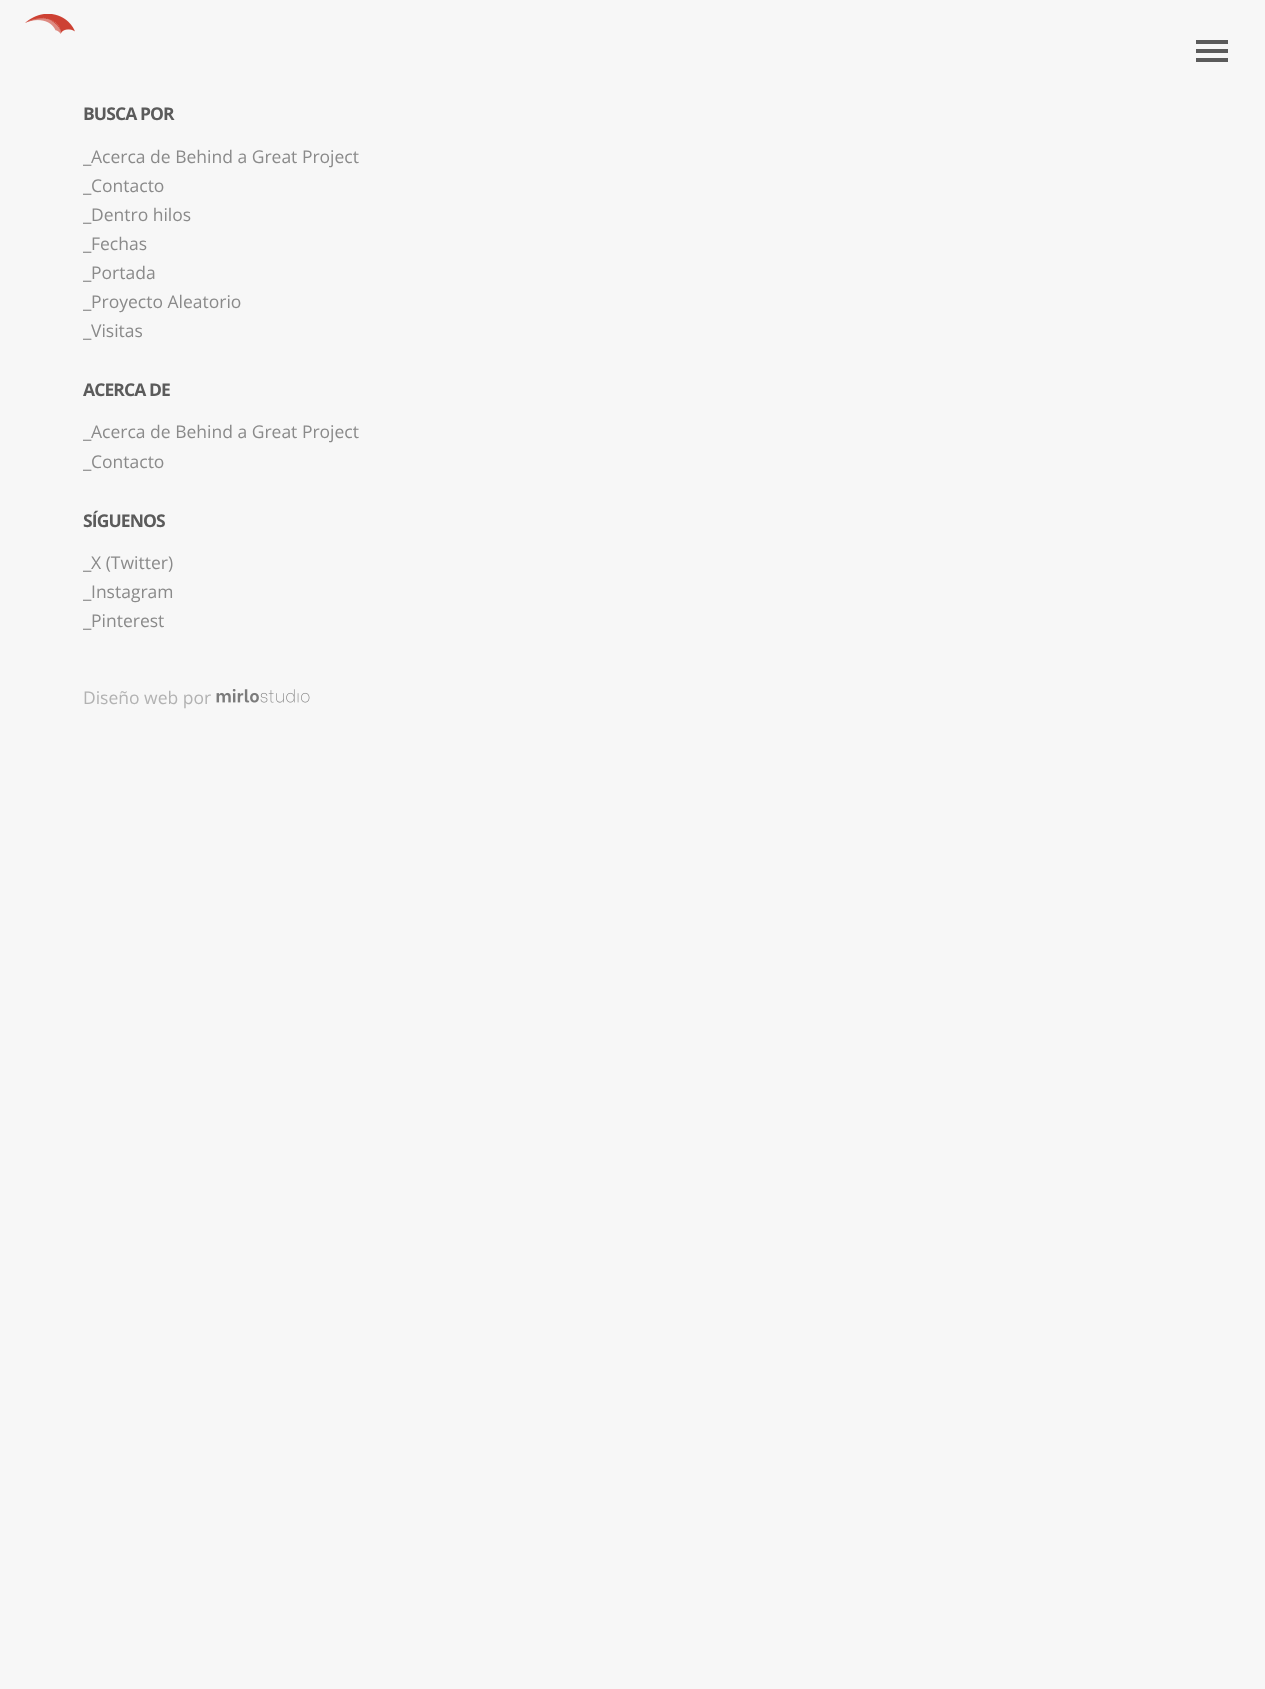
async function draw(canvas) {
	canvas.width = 1265;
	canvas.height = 1689;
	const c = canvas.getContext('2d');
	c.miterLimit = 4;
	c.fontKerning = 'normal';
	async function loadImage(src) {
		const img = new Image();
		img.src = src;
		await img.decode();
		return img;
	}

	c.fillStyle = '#f7f7f7';
	c.fillRect(0, 0, 1265, 1689);
	c.drawImage(await loadImage('img1.png'), 25, 14, 50, 20);
	for (const [x, y, w, h, color] of [
		[1196, 40, 32, 4, '#5b5b5b'],
		[1196, 49, 32, 4, '#5b5b5b'],
		[1196, 58, 32, 4, '#5b5b5b'],
	]) {
		c.fillStyle = color;
		c.fillRect(x, y, w, h);
	}
	c.letterSpacing = '-0.9px';
	c.font = 'bold 17.5px Open Sans';
	c.fillText('BUSCA POR', 83, 120);
	c.letterSpacing = '0px';
	c.font = '19px Open Sans';
	c.fillStyle = '#8a8a8a';
	c.fillText('_', 83, 163);
	c.font = '17.5px Open Sans';
	c.fillText('Acerca de Behind a Great Project', 91, 163);
	c.fillText('Contacto', 91, 192);
	c.font = '19px Open Sans';
	c.fillText('_', 83, 192);
	c.font = '17.5px Open Sans';
	c.fillText('Dentro hilos', 91, 221);
	c.font = '19px Open Sans';
	c.fillText('_', 83, 221);
	c.font = '17.5px Open Sans';
	c.fillText('Fechas', 91, 250);
	c.font = '19px Open Sans';
	c.fillText('_', 83, 250);
	c.font = '17.5px Open Sans';
	c.fillText('Portada', 91, 279);
	c.font = '19px Open Sans';
	c.fillText('_', 83, 279);
	c.fillText('_', 83, 308);
	c.font = '17.5px Open Sans';
	c.fillText('Proyecto Aleatorio', 91, 308);
	c.fillText('Visitas', 91, 337);
	c.font = '19px Open Sans';
	c.fillText('_', 83, 337);
	c.letterSpacing = '-0.9px';
	c.font = 'bold 17.5px Open Sans';
	c.fillStyle = '#5b5b5b';
	c.fillText('ACERCA DE', 83, 396);
	c.letterSpacing = '0px';
	c.font = '19px Open Sans';
	c.fillStyle = '#8a8a8a';
	c.fillText('_', 83, 438);
	c.font = '17.5px Open Sans';
	c.fillText('Acerca de Behind a Great Project', 91, 438);
	c.fillText('Contacto', 91, 468);
	c.font = '19px Open Sans';
	c.fillText('_', 83, 468);
	c.letterSpacing = '-0.9px';
	c.font = 'bold 17.5px Open Sans';
	c.fillStyle = '#5b5b5b';
	c.fillText('SÍGUENOS', 83, 527);
	c.letterSpacing = '0px';
	c.font = '19px Open Sans';
	c.fillStyle = '#8a8a8a';
	c.fillText('_', 83, 569);
	c.font = '17.5px Open Sans';
	c.fillText('X (Twitter)', 91, 569);
	c.font = '19px Open Sans';
	c.fillText('_', 83, 598);
	c.font = '17.5px Open Sans';
	c.fillText('Instagram', 91, 598);
	c.fillText('Pinterest', 91, 627);
	c.font = '19px Open Sans';
	c.fillText('_', 83, 627);
	c.font = '17.5px Open Sans';
	c.fillStyle = '#b2b2b2';
	c.fillText('Diseño web por', 83, 704);
	c.drawImage(await loadImage('img2.png'), 216, 689, 94, 14);
}

draw(document.querySelector('canvas'));
